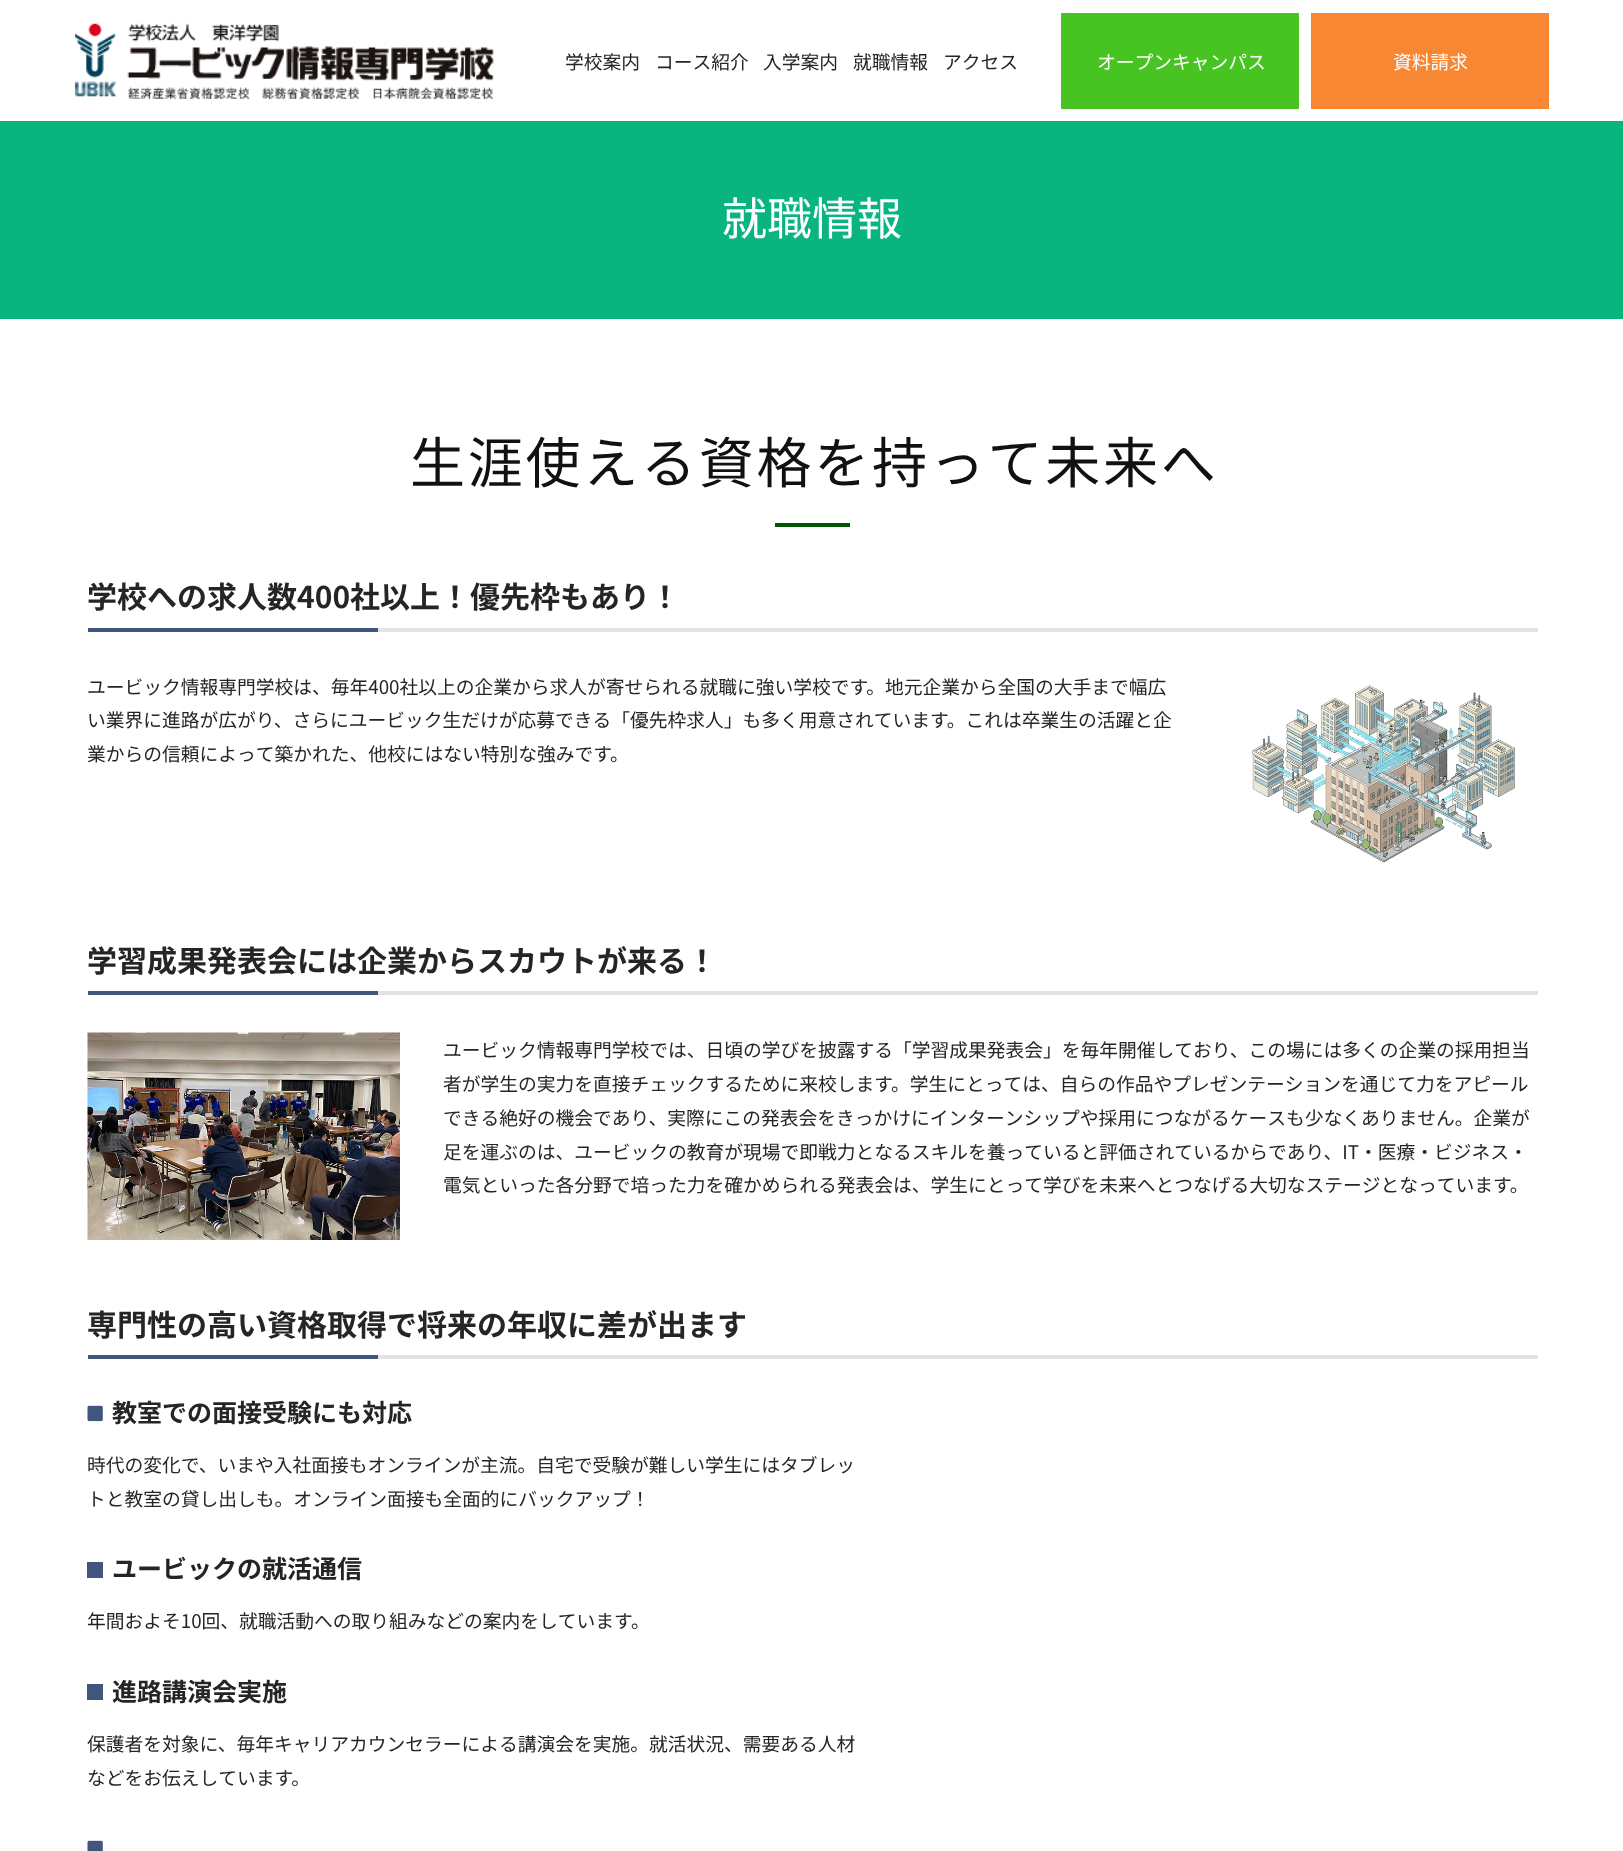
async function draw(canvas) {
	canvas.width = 1623;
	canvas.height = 1851;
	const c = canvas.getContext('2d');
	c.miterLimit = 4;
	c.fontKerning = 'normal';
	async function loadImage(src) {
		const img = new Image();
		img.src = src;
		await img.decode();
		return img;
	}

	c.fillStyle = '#fff';
	c.fillRect(0, 0, 1623, 1851);
	c.drawImage(await loadImage('img1.png'), 74, 23, 420, 76);
	c.font = '18.75px Noto Sans JP';
	c.fillStyle = '#252525';
	for (const [text, x, y] of [
		['学校案内', 565, 69],
		['コース紹介', 655, 69],
		['入学案内', 763, 69],
		['就職情報', 853, 69],
		['アクセス', 943, 69],
	]) {
		c.fillText(text, x, y);
	}
	c.fillStyle = '#47c422';
	c.fillRect(1061, 13, 238, 96);
	c.fillStyle = '#fff';
	c.fillText('オープンキャンパス', 1097, 69);
	c.fillStyle = '#f88733';
	c.fillRect(1311, 13, 238, 96);
	c.fillStyle = '#fff';
	c.fillText('資料請求', 1393, 69);
	c.fillStyle = '#09b47f';
	c.fillRect(0, 121, 1623, 198);
	c.font = '45px Noto Sans JP';
	c.fillStyle = '#fff';
	c.fillText('就職情報', 722, 235);
	c.letterSpacing = '2.75px';
	c.font = '55px Noto Sans JP';
	c.fillStyle = '#111';
	c.fillText('生涯使える資格を持って未来へ', 410, 483);
	c.fillStyle = '#050';
	c.fillRect(775, 523, 75, 4);
	c.fillStyle = '#e6e2e2';
	c.fillRect(378, 628, 1160, 4);
	c.letterSpacing = '0px';
	c.font = 'bold 30px Noto Sans JP';
	c.fillStyle = '#252525';
	c.fillText('学校への求人数400社以上！優先枠もあり！', 87, 608);
	c.fillStyle = '#41567c';
	c.fillRect(88, 628, 290, 4);
	c.font = '18.75px Noto Sans JP';
	c.fillStyle = '#252525';
	for (const [text, x, y] of [
		['ユービック情報専門学校は、毎年400社以上の企業から求人が寄せられる就職に強い学校です。地元企業から全国の大手まで幅広', 87, 694],
		['い業界に進路が広がり、さらにユービック生だけが応募できる「優先枠求人」も多く用意されています。これは卒業生の活躍と企', 87, 727],
		['業からの信頼によって築かれた、他校にはない特別な強みです。', 87, 761],
	]) {
		c.fillText(text, x, y);
	}
	c.drawImage(await loadImage('img2.png'), 1252, 685, 263, 178);
	c.fillStyle = '#e6e2e2';
	c.fillRect(378, 991, 1160, 4);
	c.font = 'bold 30px Noto Sans JP';
	c.fillStyle = '#252525';
	c.fillText('学習成果発表会には企業からスカウトが来る！', 87, 972);
	c.fillStyle = '#41567c';
	c.fillRect(88, 991, 290, 4);
	c.drawImage(await loadImage('img3.png'), 87, 1032, 313, 208);
	c.font = '18.75px Noto Sans JP';
	c.fillStyle = '#252525';
	for (const [text, x, y] of [
		['ユービック情報専門学校では、日頃の学びを披露する「学習成果発表会」を毎年開催しており、この場には多くの企業の採用担当', 443, 1057],
		['者が学生の実力を直接チェックするために来校します。学生にとっては、自らの作品やプレゼンテーションを通じて力をアピール', 443, 1091],
		['できる絶好の機会であり、実際にこの発表会をきっかけにインターンシップや採用につながるケースも少なくありません。企業が', 443, 1125],
		['足を運ぶのは、ユービックの教育が現場で即戦力となるスキルを養っていると評価されているからであり、IT・医療・ビジネス・', 443, 1159],
		['電気といった各分野で培った力を確かめられる発表会は、学生にとって学びを未来へとつなげる大切なステージとなっています。', 443, 1192],
	]) {
		c.fillText(text, x, y);
	}
	c.fillStyle = '#e6e2e2';
	c.fillRect(378, 1355, 1160, 4);
	c.font = 'bold 30px Noto Sans JP';
	c.fillStyle = '#252525';
	c.fillText('専門性の高い資格取得で将来の年収に差が出ます', 87, 1336);
	c.fillStyle = '#41567c';
	c.fillRect(88, 1355, 290, 4);
	c.drawImage(await loadImage('img4.png'), 87, 1405, 16, 17);
	c.font = 'bold 25px Noto Sans JP';
	c.fillStyle = '#252525';
	c.fillText('教室での面接受験にも対応', 112, 1422);
	c.font = '18.75px Noto Sans JP';
	c.fillText('時代の変化で、いまや入社面接もオンラインが主流。自宅で受験が難しい学生にはタブレッ', 87, 1472);
	c.fillText('トと教室の貸し出しも。オンライン面接も全面的にバックアップ！', 87, 1506);
	c.fillStyle = '#41567c';
	c.fillRect(87, 1562, 16, 16);
	c.font = 'bold 25px Noto Sans JP';
	c.fillStyle = '#252525';
	c.fillText('ユービックの就活通信', 112, 1578);
	c.font = '18.75px Noto Sans JP';
	c.fillText('年間およそ10回、就職活動への取り組みなどの案内をしています。', 87, 1628);
	c.fillStyle = '#41567c';
	c.fillRect(87, 1684, 16, 16);
	c.font = 'bold 25px Noto Sans JP';
	c.fillStyle = '#252525';
	c.fillText('進路講演会実施', 112, 1701);
	c.font = '18.75px Noto Sans JP';
	c.fillText('保護者を対象に、毎年キャリアカウンセラーによる講演会を実施。就活状況、需要ある人材', 87, 1751);
	c.fillText('などをお伝えしています。', 87, 1785);
	c.drawImage(await loadImage('img5.png'), 87, 1840, 16, 11);
}

draw(document.querySelector('canvas'));
